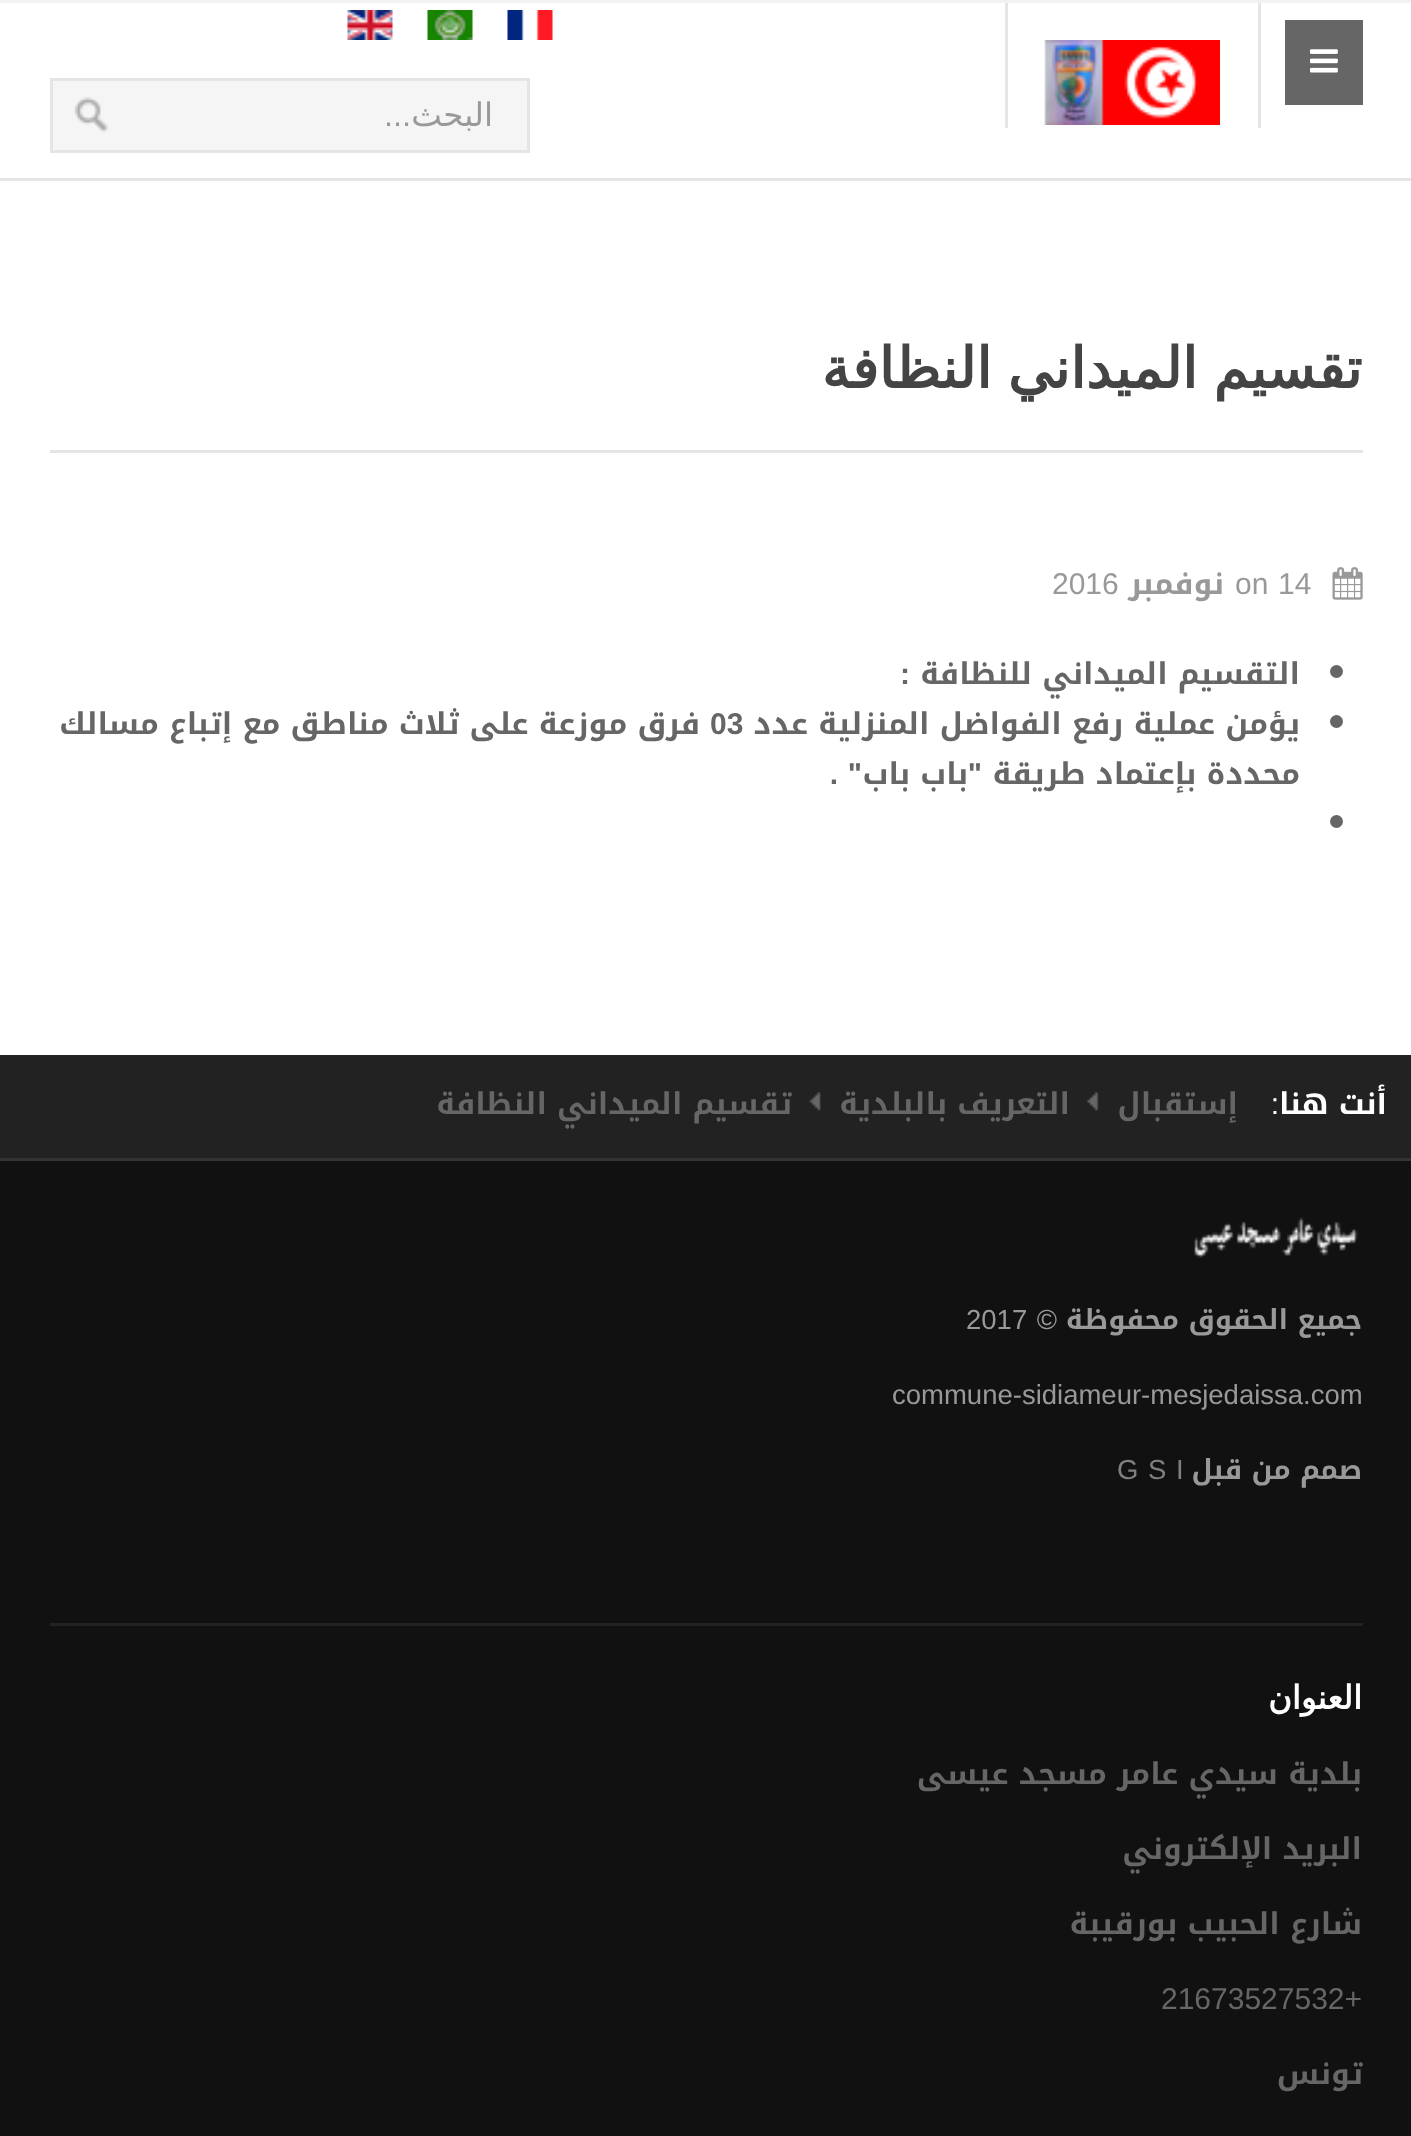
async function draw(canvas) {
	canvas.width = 1411;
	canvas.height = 2136;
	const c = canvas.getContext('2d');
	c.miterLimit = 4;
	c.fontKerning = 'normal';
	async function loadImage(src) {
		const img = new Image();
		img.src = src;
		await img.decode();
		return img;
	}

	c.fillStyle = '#fff';
	c.fillRect(0, 0, 1411, 2136);
	for (const [x, y, w, h, color] of [
		[0, 0, 1411, 3, '#f2f2f2'],
		[0, 178, 1411, 3, '#e5e5e5'],
		[1285, 20, 78, 85, '#666'],
	]) {
		c.fillStyle = color;
		c.fillRect(x, y, w, h);
	}
	c.drawImage(await loadImage('img1.png'), 1310, 49, 28, 24);
	c.fillStyle = '#e5e5e5';
	c.fillRect(1258, 3, 3, 125);
	c.fillRect(1005, 3, 3, 125);
	c.drawImage(await loadImage('img2.png'), 1044, 40, 176, 85);
	c.drawImage(await loadImage('img3.png'), 507, 10, 46, 30);
	c.drawImage(await loadImage('img4.png'), 427, 10, 46, 30);
	c.drawImage(await loadImage('img5.png'), 347, 10, 46, 30);
	c.fillStyle = '#f5f5f5';
	c.fillRect(53, 81, 474, 69);
	c.drawImage(await loadImage('img6.png'), 75, 97, 34, 36);
	c.strokeStyle = '#e5e5e5';
	c.lineWidth = 3;
	c.strokeRect(51.5, 79.5, 477, 72);
	c.direction = 'rtl';
	c.font = '32.5px DejaVu Sans';
	c.fillStyle = '#999';
	c.fillText('البحث', 493, 126);
	c.font = '32.5px Liberation Sans';
	c.fillText('...', 411, 126);
	c.fillStyle = '#e5e5e5';
	c.fillRect(50, 450, 1313, 3);
	c.wordSpacing = '-2px';
	c.font = 'bold 56.25px DejaVu Sans';
	c.fillStyle = '#444';
	c.fillText('تقسيم الميداني النظافة', 1362, 388);
	c.drawImage(await loadImage('img7.png'), 1332, 567, 31, 33);
	c.wordSpacing = '0px';
	c.direction = 'ltr';
	c.font = '30px Liberation Sans';
	c.fillStyle = '#999';
	c.fillText('14', 1278, 594);
	c.fillText('on', 1235, 594);
	c.direction = 'rtl';
	c.font = 'bold 30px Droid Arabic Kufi';
	c.fillText('نوفمبر', 1224, 594);
	c.direction = 'ltr';
	c.font = '30px Liberation Sans';
	c.fillText('2016', 1052, 594);
	c.fillStyle = '#666';
	c.beginPath();
	c.arc(1336.5, 671.5, 6.5, 0, 2 * Math.PI);
	c.fill();
	c.direction = 'rtl';
	c.font = 'bold 30px Droid Arabic Kufi';
	c.fillText('التقسيم الميداني للنظافة', 1300, 684);
	c.font = 'bold 30px Liberation Sans';
	c.fillText(':', 910, 684);
	c.beginPath();
	c.arc(1336.5, 721.5, 6.5, 0, 2 * Math.PI);
	c.fill();
	c.font = 'bold 30px Droid Arabic Kufi';
	c.fillText('يؤمن عملية رفع الفواضل المنزلية عدد', 1300, 734);
	c.direction = 'ltr';
	c.font = 'bold 30px Liberation Sans';
	c.fillText('03', 710, 734);
	c.direction = 'rtl';
	c.font = 'bold 30px Droid Arabic Kufi';
	c.fillText('فرق موزعة على ثلاث مناطق مع إتباع مسالك', 700, 734);
	c.fillText('محددة بإعتماد طريقة', 1300, 784);
	c.font = 'bold 30px Liberation Sans';
	c.fillText('"', 982, 784);
	c.font = 'bold 30px Droid Arabic Kufi';
	c.fillText('باب باب', 968, 784);
	c.font = 'bold 30px Liberation Sans';
	c.fillText('"', 862, 784);
	c.fillText('.', 838, 784);
	c.beginPath();
	c.arc(1336.5, 821.5, 6.5, 0, 2 * Math.PI);
	c.fill();
	c.fillStyle = '#222';
	c.fillRect(0, 1055, 1411, 103);
	c.font = 'bold 30px Droid Arabic Kufi';
	c.fillStyle = '#fff';
	c.fillText('أنت هنا', 1387, 1114);
	c.font = '30px Liberation Sans';
	c.fillText(':', 1279, 1114);
	c.font = 'bold 30px Droid Arabic Kufi';
	c.fillStyle = '#666';
	c.fillText('إستقبال', 1238, 1114);
	c.drawImage(await loadImage('img8.png'), 1087, 1092, 12, 19);
	c.fillText('التعريف بالبلدية', 1070, 1114);
	c.drawImage(await loadImage('img9.png'), 809, 1092, 12, 19);
	c.fillText('تقسيم الميداني النظافة', 792, 1114);
	for (const [x, y, w, h, color] of [
		[0, 1161, 1411, 975, '#111'],
		[0, 1158, 1411, 3, '#333'],
		[50, 1623, 1313, 3, '#222'],
	]) {
		c.fillStyle = color;
		c.fillRect(x, y, w, h);
	}
	c.drawImage(await loadImage('img10.png'), 1194, 1217, 164, 41);
	c.font = 'bold 27.5px Droid Arabic Kufi';
	c.fillStyle = '#999';
	c.fillText('جميع الحقوق محفوظة', 1362, 1329);
	c.font = '27.5px Liberation Sans';
	c.fillText('©', 1057, 1329);
	c.direction = 'ltr';
	c.fillText('2017', 966, 1329);
	c.fillText('commune-sidiameur-mesjedaissa.com', 892, 1404);
	c.direction = 'rtl';
	c.font = 'bold 27.5px Droid Arabic Kufi';
	c.fillText('صمم من قبل', 1362, 1479);
	c.wordSpacing = '2px';
	c.direction = 'ltr';
	c.font = '27.5px Liberation Sans';
	c.fillStyle = '#808080';
	c.fillText('G S I', 1117, 1479);
	c.wordSpacing = '0px';
	c.direction = 'rtl';
	c.font = 'bold 32.5px DejaVu Sans';
	c.fillStyle = '#fff';
	c.fillText('العنوان', 1362, 1709);
	c.font = 'bold 30px Droid Arabic Kufi';
	c.fillStyle = '#666';
	for (const [text, x, y] of [
		['بلدية سيدي عامر مسجد عيسى', 1362, 1784],
		['البريد الإلكتروني', 1362, 1859],
		['شارع الحبيب بورقيبة', 1362, 1934],
	]) {
		c.fillText(text, x, y);
	}
	c.direction = 'ltr';
	c.font = '30px Liberation Sans';
	c.fillText('21673527532+', 1161, 2009);
	c.direction = 'rtl';
	c.font = 'bold 30px Droid Arabic Kufi';
	c.fillText('تونس', 1363, 2084);
}

draw(document.querySelector('canvas'));
